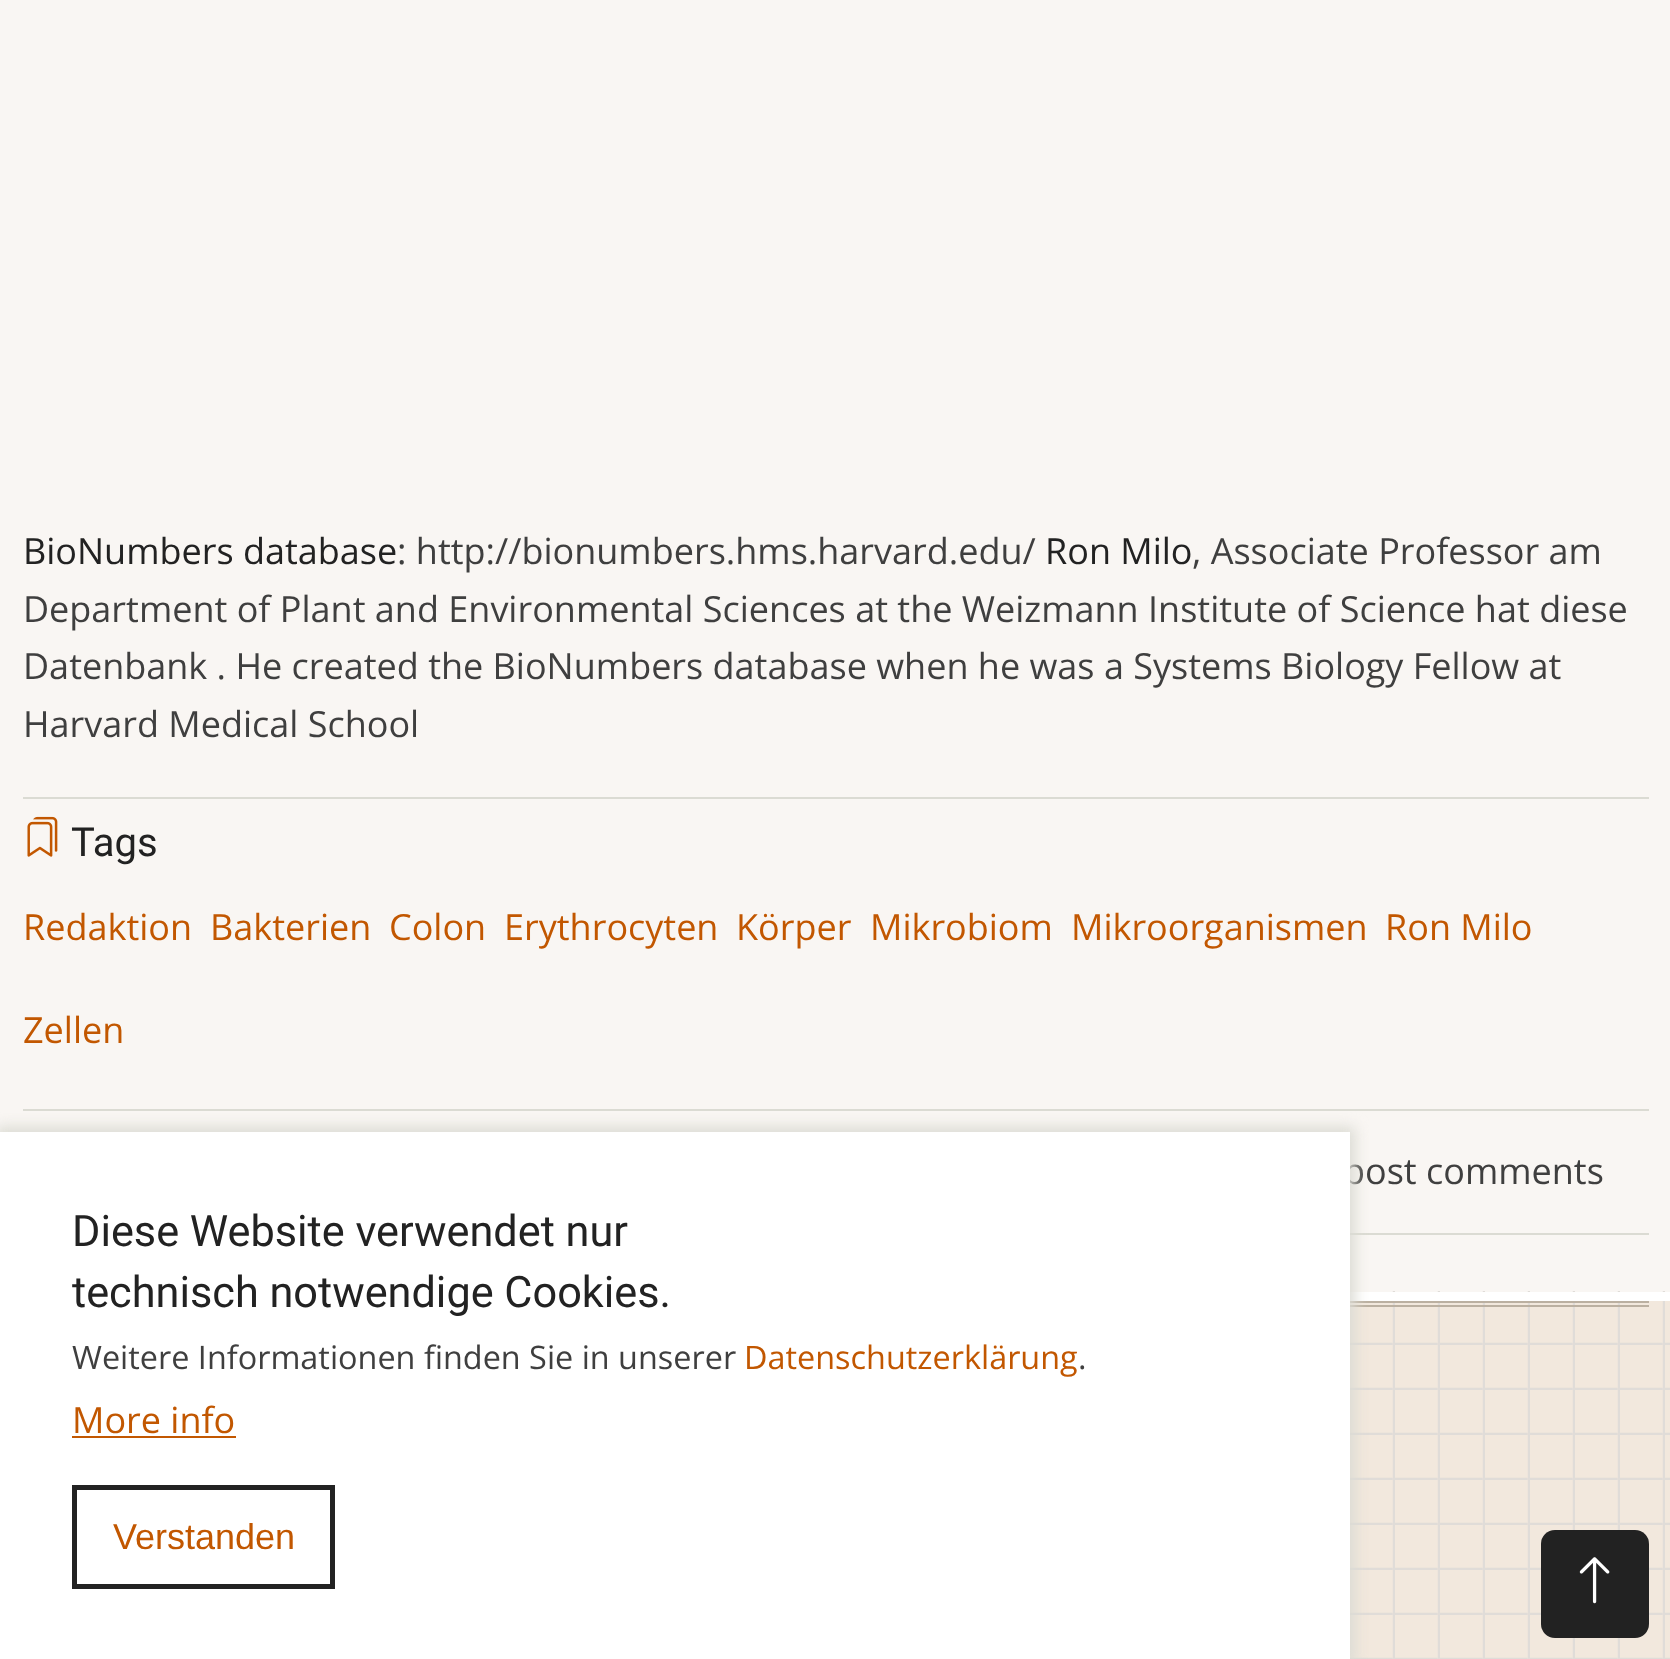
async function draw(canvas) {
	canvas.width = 1670;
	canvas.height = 1659;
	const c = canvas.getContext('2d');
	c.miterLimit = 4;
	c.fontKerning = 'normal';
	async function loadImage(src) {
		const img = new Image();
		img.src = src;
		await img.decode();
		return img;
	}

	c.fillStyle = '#f9f6f3';
	c.fillRect(0, 0, 1670, 1659);
	c.font = '36px Open Sans';
	c.fillStyle = '#222';
	c.fillText('BioNumbers database', 23, 564);
	c.fillStyle = '#3f3f3f';
	c.fillText(': http://bionumbers.hms.harvard.edu/', 397, 564);
	c.fillStyle = '#222';
	c.fillText('Ron Milo', 1045, 564);
	c.fillStyle = '#3f3f3f';
	for (const [text, x, y] of [
		[', Associate Professor am', 1192, 564],
		['Department of Plant and Environmental Sciences at the Weizmann Institute of Science hat diese', 23, 622],
		['Datenbank . He created the BioNumbers database when he was a Systems Biology Fellow at', 23, 679],
		['Harvard Medical School', 23, 737],
	]) {
		c.fillText(text, x, y);
	}
	c.fillStyle = '#dbdbd3';
	c.fillRect(23, 797, 1626, 2);
	c.drawImage(await loadImage('img1.png'), 27, 816, 31, 41);
	c.font = '40px Roboto';
	c.fillStyle = '#222';
	c.fillText('Tags', 71, 856);
	c.font = '36px Open Sans';
	c.fillStyle = '#c25700';
	for (const [text, x, y] of [
		['Redaktion', 23, 940],
		['Bakterien', 210, 940],
		['Colon', 389, 940],
		['Erythrocyten', 504, 940],
		['Körper', 736, 940],
		['Mikrobiom', 870, 940],
		['Mikroorganismen', 1071, 940],
		['Ron Milo', 1385, 940],
		['Zellen', 23, 1043],
	]) {
		c.fillText(text, x, y);
	}
	c.fillStyle = '#dbdbd3';
	c.fillRect(23, 1109, 1626, 2);
	c.fillRect(1350, 1233, 299, 2);
	c.fillStyle = '#3f3f3f';
	c.fillText('post comments', 1343, 1184);
	c.fillStyle = '#f2e8dd';
	c.fillRect(1350, 1301, 320, 358);
	c.drawImage(await loadImage('img2.png'), 1350, 1291, 320, 368);
	for (const [x, y, w, h, color] of [
		[1350, 1292, 320, 9, '#fff'],
		[1350, 1301, 299, 2, '#bbb0a1'],
		[1350, 1305, 299, 2, '#bbb0a1'],
	]) {
		c.fillStyle = color;
		c.fillRect(x, y, w, h);
	}
	c.fillStyle = '#222';
	c.beginPath();
	c.roundRect(1541, 1530, 108, 108, 14);
	c.fill();
	c.drawImage(await loadImage('img3.png'), 1579, 1557, 31, 47);
	c.fillStyle = '#dbdbd3';
	c.filter = 'blur(7px)';
	c.beginPath();
	c.rect(-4, 1127, 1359, 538);
	c.fill();
	c.filter = 'none';
	c.fillStyle = '#fff';
	c.fillRect(0, 1132, 1350, 527);
	c.font = '43.25px Roboto';
	c.fillStyle = '#222';
	c.fillText('Diese Website verwendet nur', 72, 1246);
	c.fillText('technisch notwendige Cookies.', 72, 1307);
	c.font = '32.4px Open Sans';
	c.fillStyle = '#3f3f3f';
	c.fillText('Weitere Informationen finden Sie in unserer', 72, 1369);
	c.fillStyle = '#c25700';
	c.fillText('Datenschutzerklärung', 744, 1369);
	c.fillStyle = '#3f3f3f';
	c.fillText('.', 1078, 1369);
	c.font = '36px Open Sans';
	c.fillStyle = '#c25700';
	c.fillText('More info', 72, 1433);
	c.fillRect(72, 1436, 164, 2);
	c.strokeStyle = '#222';
	c.lineWidth = 5;
	c.strokeRect(74.5, 1487.5, 258, 99);
	c.font = '36px Liberation Sans';
	c.fillText('Verstanden', 113, 1549);
}

draw(document.querySelector('canvas'));
